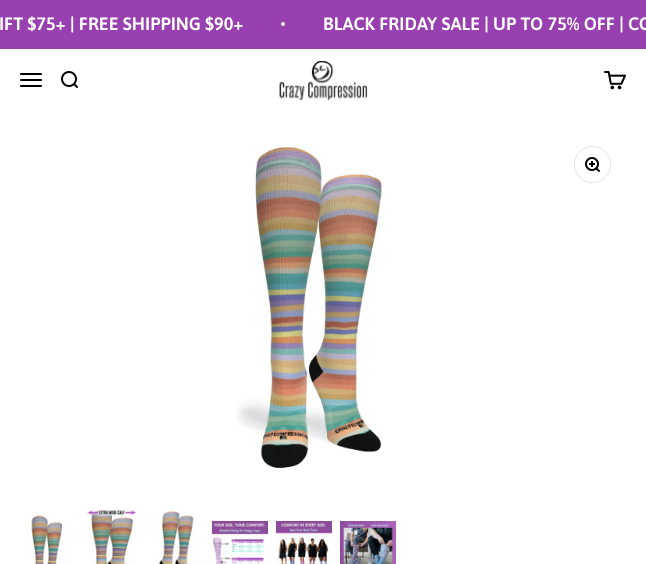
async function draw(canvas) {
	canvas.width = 646;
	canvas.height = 564;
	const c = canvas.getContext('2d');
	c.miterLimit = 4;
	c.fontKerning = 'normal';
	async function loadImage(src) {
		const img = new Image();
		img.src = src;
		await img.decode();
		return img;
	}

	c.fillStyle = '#fff';
	c.fillRect(0, 0, 646, 564);
	c.fillStyle = '#9940b1';
	c.fillRect(0, 0, 646, 49);
	c.font = '600 18px Asap';
	c.fillStyle = '#fff';
	c.fillText('IFT $75+ | FREE SHIPPING $90+', -1, 30);
	c.beginPath();
	c.arc(283, 24, 2, 0, 2 * Math.PI);
	c.fill();
	c.fillText('BLACK FRIDAY SALE | UP TO 75% OFF | CO', 323, 30);
	c.drawImage(await loadImage('img1.png'), 20, 73, 22, 14);
	c.drawImage(await loadImage('img2.png'), 61, 71, 17, 17);
	c.drawImage(await loadImage('img3.png'), 279, 61, 89, 39);
	c.drawImage(await loadImage('img4.png'), 604, 71, 22, 19);
	c.drawImage(await loadImage('img5.png'), 236, 147, 146, 322);
	c.beginPath();
	c.arc(592.5, 164.5, 18, 0, 2 * Math.PI);
	c.strokeStyle = '#e0e0e0';
	c.stroke();
	c.beginPath();
	c.arc(592.5, 164.5, 17.5, 0, 2 * Math.PI);
	c.fill();
	c.drawImage(await loadImage('img6.png'), 585, 157, 15, 15);
	c.drawImage(await loadImage('img7.png'), 27, 512, 36, 52);
	c.drawImage(await loadImage('img8.png'), 84, 507, 53, 57);
	c.drawImage(await loadImage('img9.png'), 157, 510, 40, 54);
	c.drawImage(await loadImage('img10.png'), 212, 521, 56, 43);
	c.drawImage(await loadImage('img11.png'), 276, 521, 56, 43);
	c.drawImage(await loadImage('img12.png'), 340, 521, 56, 43);
}

draw(document.querySelector('canvas'));
